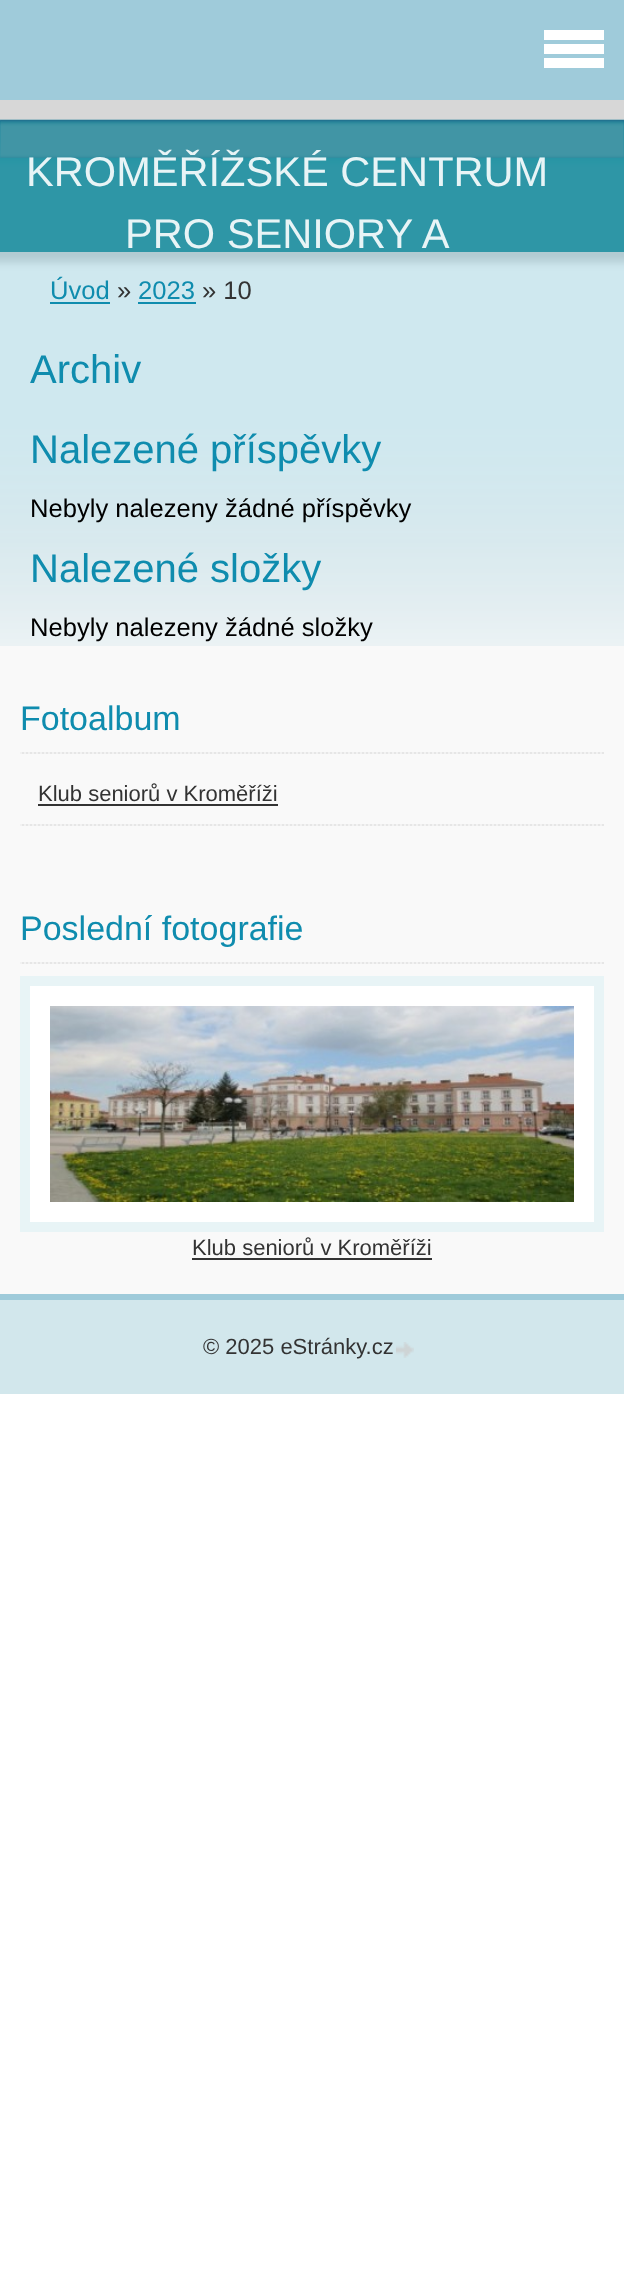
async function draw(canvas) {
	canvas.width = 624;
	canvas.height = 2272;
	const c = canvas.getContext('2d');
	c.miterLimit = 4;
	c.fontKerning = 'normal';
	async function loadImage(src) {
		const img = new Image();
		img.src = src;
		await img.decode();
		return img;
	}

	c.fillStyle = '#fff';
	c.fillRect(0, 0, 624, 2272);
	for (const [x, y, w, h, color] of [
		[0, 0, 624, 1300, '#9fcbda'],
		[544, 30, 60, 10, '#fff'],
		[544, 44, 60, 10, '#fff'],
		[544, 58, 60, 10, '#fff'],
	]) {
		c.fillStyle = color;
		c.fillRect(x, y, w, h);
	}
	c.drawImage(await loadImage('img1.png'), 0, 100, 624, 152);
	c.drawImage(await loadImage('img2.png'), 0, 120, 624, 38);
	c.font = '41.6px Liberation Sans';
	c.fillStyle = '#e8f4f6';
	c.fillText('KROMĚŘÍŽSKÉ CENTRUM', 26, 186);
	c.fillText('PRO SENIORY A', 125, 248);
	c.drawImage(await loadImage('img3.png'), 0, 252, 624, 394);
	c.font = '25.6px Liberation Sans';
	c.fillStyle = '#0f8cae';
	c.fillText('Úvod', 50, 299);
	c.fillRect(50, 302, 60, 2);
	c.fillStyle = '#333';
	c.fillText('»', 117, 299);
	c.fillStyle = '#0f8cae';
	c.fillText('2023', 138, 299);
	c.fillRect(138, 302, 58, 2);
	c.fillStyle = '#333';
	c.fillText('» 10', 202, 299);
	c.font = '40px Liberation Sans';
	c.fillStyle = '#0f8cae';
	c.fillText('Archiv', 30, 383);
	c.fillText('Nalezené příspěvky', 30, 463);
	c.font = '25.6px Liberation Sans';
	c.fillStyle = '#000';
	c.fillText('Nebyly nalezeny žádné příspěvky', 30, 517);
	c.font = '40px Liberation Sans';
	c.fillStyle = '#0f8cae';
	c.fillText('Nalezené složky', 30, 582);
	c.font = '25.6px Liberation Sans';
	c.fillStyle = '#000';
	c.fillText('Nebyly nalezeny žádné složky', 30, 636);
	c.fillStyle = '#f9f9f9';
	c.fillRect(0, 646, 624, 648);
	c.drawImage(await loadImage('img4.png'), 20, 752, 584, 2);
	c.font = '34px Liberation Sans';
	c.fillStyle = '#0f8cae';
	c.fillText('Fotoalbum', 20, 730);
	c.drawImage(await loadImage('img4.png'), 20, 824, 584, 2);
	c.font = '22px Liberation Sans';
	c.fillStyle = '#333';
	c.fillText('Klub seniorů v Kroměříži', 38, 801);
	c.fillRect(38, 804, 240, 2);
	c.drawImage(await loadImage('img4.png'), 20, 962, 584, 2);
	c.font = '34px Liberation Sans';
	c.fillStyle = '#0f8cae';
	c.fillText('Poslední fotografie', 20, 940);
	c.fillStyle = '#fff';
	c.beginPath();
	c.rect(25, 981, 574, 246);
	c.fill();
	c.strokeStyle = '#e8f4f6';
	c.lineWidth = 10;
	c.stroke();
	c.drawImage(await loadImage('img5.png'), 50, 1006, 524, 196);
	c.font = '22px Liberation Sans';
	c.fillStyle = '#333';
	c.fillText('Klub seniorů v Kroměříži', 192, 1255);
	c.fillRect(192, 1258, 240, 2);
	c.fillStyle = '#d2e7ec';
	c.fillRect(0, 1300, 624, 94);
	c.fillStyle = '#333';
	c.fillText('© 2025 eStránky.cz', 203, 1354);
	c.drawImage(await loadImage('img6.png'), 396, 1342, 18, 16);
}

draw(document.querySelector('canvas'));
